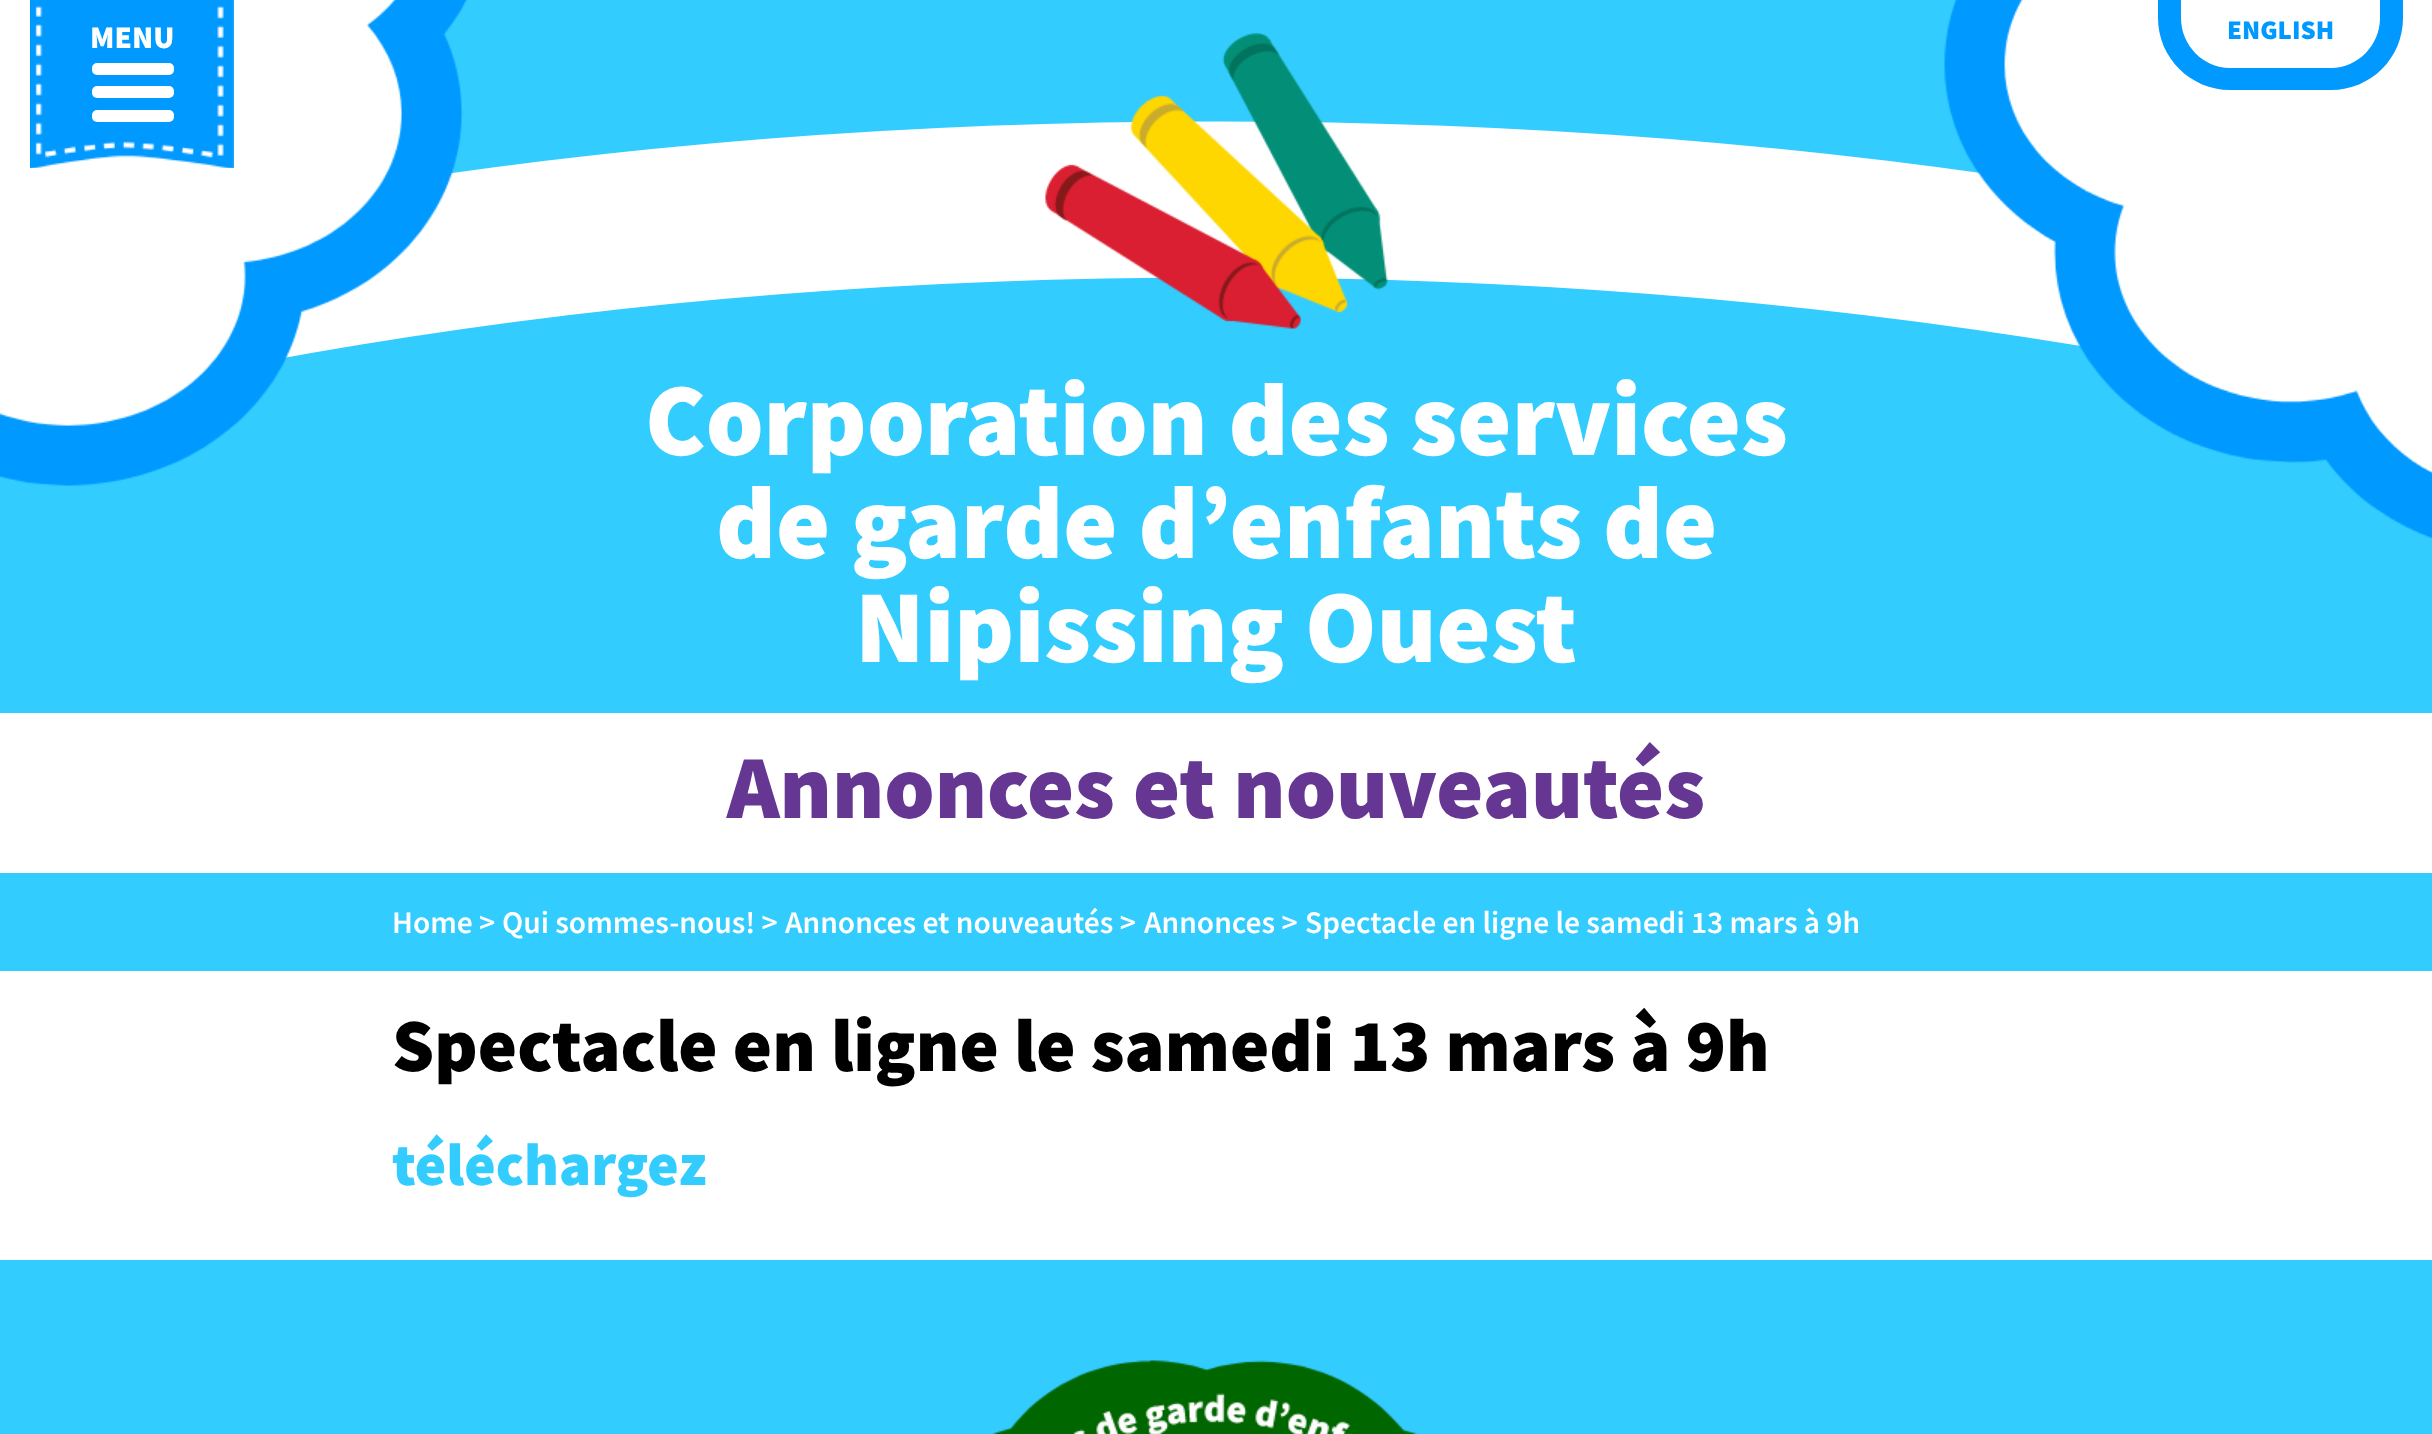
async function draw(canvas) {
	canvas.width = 2432;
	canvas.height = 1434;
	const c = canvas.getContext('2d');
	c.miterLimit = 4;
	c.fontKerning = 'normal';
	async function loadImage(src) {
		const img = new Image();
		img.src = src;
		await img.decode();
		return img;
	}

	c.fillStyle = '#fff';
	c.fillRect(0, 0, 2432, 1434);
	c.fillStyle = '#3cf';
	c.fillRect(0, 0, 2432, 713);
	c.beginPath();
	c.moveTo(1216.5, 199.5);
	c.bezierCurveTo(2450, 199.5, 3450, 589, 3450, 1069.5);
	c.lineTo(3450, 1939.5);
	c.lineTo(-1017, 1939.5);
	c.lineTo(-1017, 1069.5);
	c.bezierCurveTo(-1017, 589, -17, 199.5, 1216.5, 199.5);
	c.closePath();
	c.strokeStyle = '#fff';
	c.lineWidth = 156;
	c.stroke();
	c.drawImage(await loadImage('img2.png'), 0, 0, 467, 486);
	c.drawImage(await loadImage('img1.png'), 30, 0, 204, 168);
	c.font = '900 31.5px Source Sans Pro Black';
	c.fillStyle = '#fff';
	c.fillText('MENU', 90, 48);
	c.beginPath();
	c.roundRect(92, 63, 82, 12, 5);
	c.fill();
	c.beginPath();
	c.roundRect(92, 86, 82, 12, 5);
	c.fill();
	c.beginPath();
	c.roundRect(92, 110, 82, 12, 5);
	c.fill();
	c.drawImage(await loadImage('img3.png'), 1944, 0, 488, 539);
	c.fillStyle = '#09f';
	c.beginPath();
	c.moveTo(2158, 0);
	c.lineTo(2403, 0);
	c.lineTo(2403, 18);
	c.bezierCurveTo(2403, 58, 2371, 90, 2331, 90);
	c.lineTo(2230, 90);
	c.bezierCurveTo(2191, 90, 2158, 58, 2158, 18);
	c.closePath();
	c.moveTo(2181, 0);
	c.lineTo(2380, 0);
	c.lineTo(2380, 18);
	c.bezierCurveTo(2380, 45, 2358, 68, 2331, 68);
	c.lineTo(2230, 68);
	c.bezierCurveTo(2203, 68, 2181, 45, 2181, 18);
	c.closePath();
	c.fill('evenodd');
	c.font = '900 27px Source Sans Pro Black';
	c.fillText('ENGLISH', 2227, 39);
	c.drawImage(await loadImage('img4.png'), 1045, 33, 343, 296);
	c.font = '900 103.5px Source Sans Pro Black';
	c.fillStyle = '#fff';
	for (const [text, x, y] of [
		['Corporation des services', 645, 455],
		['de garde d’enfants de', 716, 558],
		['Nipissing Ouest', 855, 662],
	]) {
		c.fillText(text, x, y);
	}
	c.font = '900 90px Source Sans Pro Black';
	c.fillStyle = '#663693';
	c.fillText('Annonces et nouveautés', 727, 818);
	c.fillStyle = '#3cf';
	c.fillRect(0, 873, 2432, 98);
	c.font = '600 31.5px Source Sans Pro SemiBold';
	c.fillStyle = '#fff';
	for (const [text, x, y] of [
		['Home >', 392, 933],
		['Qui sommes-nous! >', 502, 933],
		['Annonces et nouveautés >', 785, 933],
		['Annonces >', 1144, 933],
		['Spectacle en ligne le samedi 13 mars à 9h', 1305, 933],
	]) {
		c.fillText(text, x, y);
	}
	c.font = '900 75px Source Sans Pro Black';
	c.fillStyle = '#000';
	c.fillText('Spectacle en ligne le samedi 13 mars à 9h', 392, 1071);
	c.font = '900 60px Source Sans Pro Black';
	c.fillStyle = '#3cf';
	c.fillText('téléchargez', 392, 1185);
	c.fillRect(0, 1260, 2432, 174);
	c.drawImage(await loadImage('img5.png'), 990, 1360, 430, 74);
}

draw(document.querySelector('canvas'));
